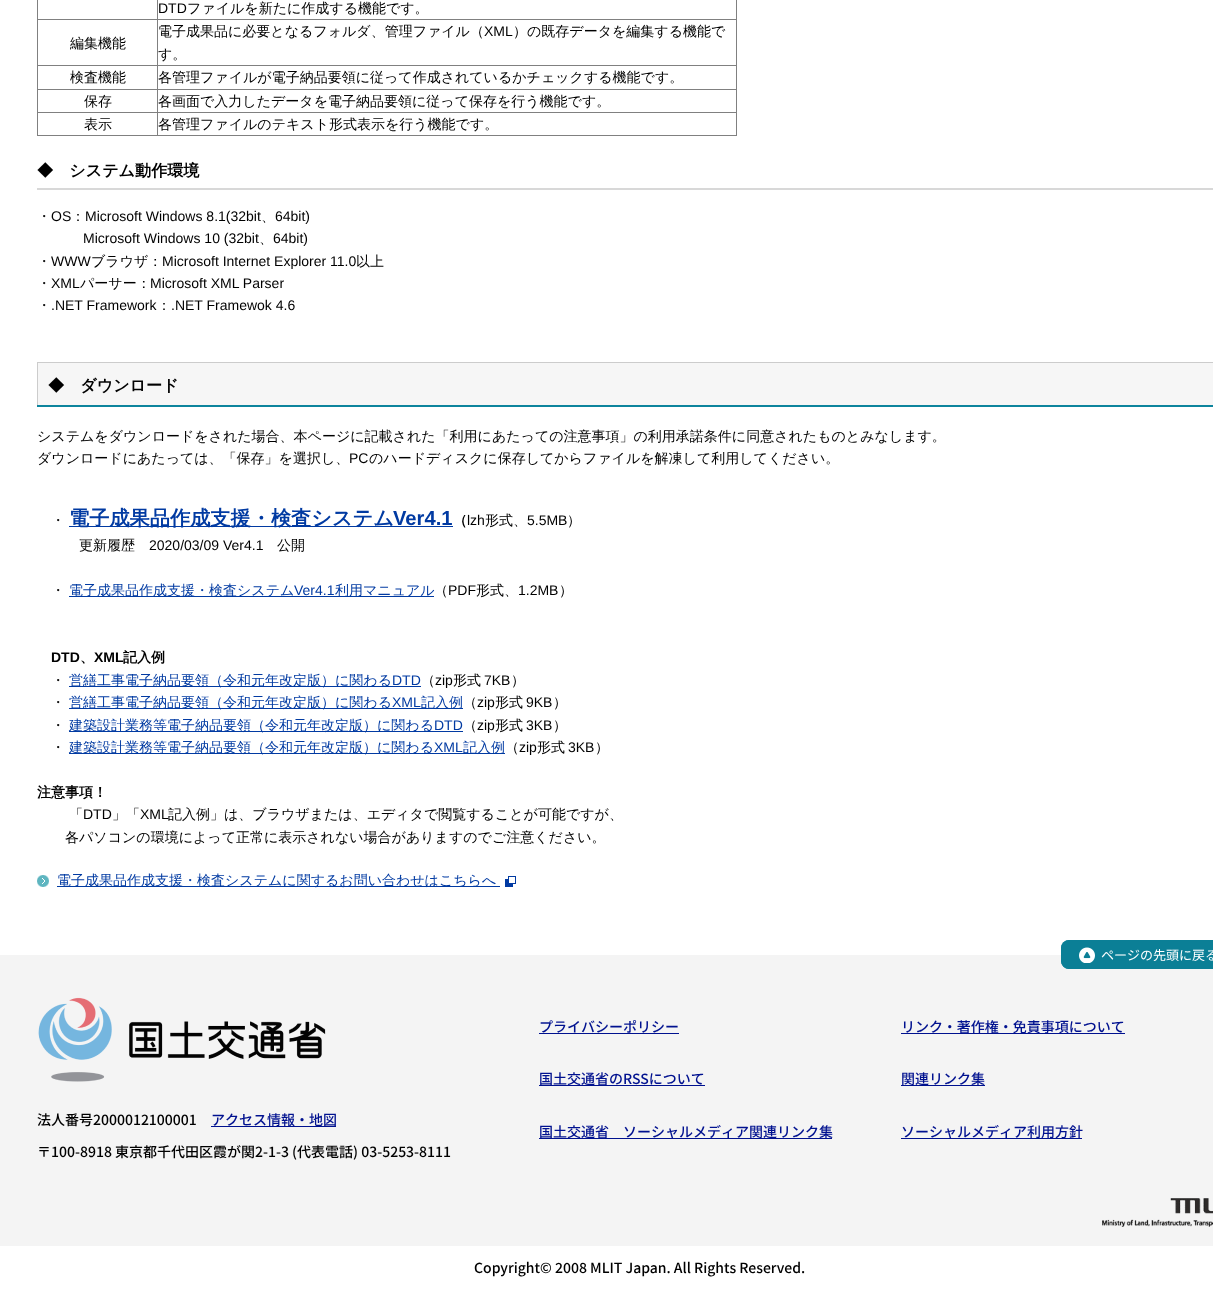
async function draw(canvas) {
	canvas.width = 1213;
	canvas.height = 1292;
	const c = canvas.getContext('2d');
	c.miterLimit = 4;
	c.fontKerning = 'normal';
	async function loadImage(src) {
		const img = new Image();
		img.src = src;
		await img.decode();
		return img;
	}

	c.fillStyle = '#fff';
	c.fillRect(0, 0, 1213, 1292);
	for (const [x, y, w, h, color] of [
		[736, 0, 1, 136, '#808080'],
		[37, 135, 700, 1, '#808080'],
		[37, 0, 1, 136, '#808080'],
		[157, 19, 580, 1, '#808080'],
		[157, 65, 580, 1, '#808080'],
		[157, 89, 580, 1, '#808080'],
		[157, 112, 580, 1, '#808080'],
		[157, 112, 1, 24, '#808080'],
		[37, 112, 121, 1, '#808080'],
		[157, 89, 1, 24, '#808080'],
		[37, 89, 121, 1, '#808080'],
		[157, 65, 1, 25, '#808080'],
		[37, 65, 121, 1, '#808080'],
		[157, 19, 1, 47, '#808080'],
		[37, 19, 121, 1, '#808080'],
		[157, 0, 1, 20, '#808080'],
	]) {
		c.fillStyle = color;
		c.fillRect(x, y, w, h);
	}
	c.font = '14px Liberation Sans';
	c.fillStyle = '#000';
	c.fillText('DTD', 158, 13);
	c.font = '500 14px WenQuanYi Zen Hei';
	for (const [text, x, y] of [
		['ファイルを新たに作成する機能です。', 187, 13],
		['編集機能', 70, 48],
		['電子成果品に必要となるフォルダ、管理ファイル（', 158, 36],
	]) {
		c.fillText(text, x, y);
	}
	c.font = '14px Liberation Sans';
	c.fillText('XML', 484, 36);
	c.font = '500 14px WenQuanYi Zen Hei';
	for (const [text, x, y] of [
		['）の既存データを編集する機能で', 513, 36],
		['す。', 158, 59],
		['検査機能', 70, 82],
		['各管理ファイルが電子納品要領に従って作成されているかチェックする機能です。', 158, 82],
		['保存', 84, 106],
		['各画面で入力したデータを電子納品要領に従って保存を行う機能です。', 158, 106],
		['表示', 84, 129],
		['各管理ファイルのテキスト形式表示を行う機能です。', 158, 129],
	]) {
		c.fillText(text, x, y);
	}
	c.fillStyle = '#d8d8d8';
	c.fillRect(37, 188, 1176, 2);
	c.font = 'bold 16.1px WenQuanYi Zen Hei';
	c.fillStyle = '#000';
	c.fillText('◆　システム動作環境', 37, 176);
	c.font = '500 14px WenQuanYi Zen Hei';
	c.fillText('・', 37, 221);
	c.font = '14px Liberation Sans';
	c.fillText('OS', 51, 221);
	c.font = '500 14px WenQuanYi Zen Hei';
	c.fillText('：', 71, 221);
	c.font = '14px Liberation Sans';
	c.fillText('Microsoft Windows 8.1(32bit', 85, 221);
	c.fillText('64bit)', 275, 221);
	c.font = '500 14px WenQuanYi Zen Hei';
	c.fillText('、', 261, 221);
	c.font = '14px Liberation Sans';
	c.fillText('Microsoft Windows 10 (32bit', 83, 243);
	c.font = '500 14px WenQuanYi Zen Hei';
	c.fillText('、', 259, 243);
	c.font = '14px Liberation Sans';
	c.fillText('64bit)', 273, 243);
	c.font = '500 14px WenQuanYi Zen Hei';
	c.fillText('・', 37, 266);
	c.font = '14px Liberation Sans';
	c.fillText('WWW', 51, 266);
	c.font = '500 14px WenQuanYi Zen Hei';
	c.fillText('ブラウザ：', 91, 266);
	c.font = '14px Liberation Sans';
	c.fillText('Microsoft Internet Explorer 11.0', 162, 266);
	c.font = '500 14px WenQuanYi Zen Hei';
	c.fillText('以上', 356, 266);
	c.fillText('・', 37, 288);
	c.font = '14px Liberation Sans';
	c.fillText('XML', 51, 288);
	c.font = '500 14px WenQuanYi Zen Hei';
	c.fillText('パーサー：', 80, 288);
	c.font = '14px Liberation Sans';
	c.fillText('Microsoft XML Parser', 150, 288);
	c.font = '500 14px WenQuanYi Zen Hei';
	c.fillText('・', 37, 310);
	c.font = '14px Liberation Sans';
	c.fillText('.NET Framework', 51, 310);
	c.font = '500 14px WenQuanYi Zen Hei';
	c.fillText('：', 157, 310);
	c.font = '14px Liberation Sans';
	c.fillText('.NET Framewok 4.6', 171, 310);
	for (const [x, y, w, h, color] of [
		[37, 405, 1176, 2, '#0d849d'],
		[38, 363, 1175, 42, '#f6f6f6'],
		[37, 362, 1176, 1, '#ccc'],
		[37, 362, 1, 43, '#ccc'],
	]) {
		c.fillStyle = color;
		c.fillRect(x, y, w, h);
	}
	c.font = 'bold 16.1px WenQuanYi Zen Hei';
	c.fillStyle = '#000';
	c.fillText('◆　ダウンロード', 48, 391);
	c.font = '500 14px WenQuanYi Zen Hei';
	c.fillText('システムをダウンロードをされた場合、本ページに記載された「利用にあたっての注意事項」の利用承諾条件に同意されたものとみなします。', 37, 441);
	c.fillText('ダウンロードにあたっては、「保存」を選択し、', 37, 463);
	c.font = '14px Liberation Sans';
	c.fillText('PC', 349, 463);
	c.font = '500 14px WenQuanYi Zen Hei';
	c.fillText('のハードディスクに保存してからファイルを解凍して利用してください。', 369, 463);
	c.fillText('・', 51, 525);
	c.fillStyle = '#013aa2';
	c.fillRect(69, 526, 384, 1);
	c.font = 'bold 20.2px WenQuanYi Zen Hei';
	c.fillText('電子成果品作成支援・検査システム', 69, 525);
	c.font = 'bold 20.2px Liberation Sans';
	c.fillText('Ver4.1', 393, 525);
	c.font = 'bold 14px WenQuanYi Zen Hei';
	c.fillStyle = '#000';
	c.fillText('（', 453, 525);
	c.font = '14px Liberation Sans';
	c.fillText('lzh', 467, 525);
	c.font = '500 14px WenQuanYi Zen Hei';
	c.fillText('形式、', 485, 525);
	c.font = '14px Liberation Sans';
	c.fillText('5.5MB', 527, 525);
	c.font = '500 14px WenQuanYi Zen Hei';
	c.fillText('）', 567, 525);
	c.fillText('更新履歴', 79, 550);
	c.font = '14px Liberation Sans';
	c.fillText('2020/03/09 Ver4.1', 149, 550);
	c.font = '500 14px WenQuanYi Zen Hei';
	c.fillText('公開', 277, 550);
	c.fillText('・', 51, 595);
	c.fillStyle = '#013aa2';
	c.fillRect(69, 596, 365, 1);
	c.fillText('電子成果品作成支援・検査システム', 69, 595);
	c.font = '14px Liberation Sans';
	c.fillText('Ver4.1', 294, 595);
	c.font = '500 14px WenQuanYi Zen Hei';
	c.fillText('利用マニュアル', 335, 595);
	c.fillStyle = '#000';
	c.fillText('（', 434, 595);
	c.font = '14px Liberation Sans';
	c.fillText('PDF', 448, 595);
	c.font = '500 14px WenQuanYi Zen Hei';
	c.fillText('形式、', 476, 595);
	c.font = '14px Liberation Sans';
	c.fillText('1.2MB', 518, 595);
	c.font = '500 14px WenQuanYi Zen Hei';
	c.fillText('）', 559, 595);
	c.font = 'bold 14px Liberation Sans';
	c.fillText('DTD', 51, 662);
	c.font = 'bold 14px WenQuanYi Zen Hei';
	c.fillText('、', 80, 662);
	c.font = 'bold 14px Liberation Sans';
	c.fillText('XML', 94, 662);
	c.font = 'bold 14px WenQuanYi Zen Hei';
	c.fillText('記入例', 123, 662);
	c.font = '500 14px WenQuanYi Zen Hei';
	c.fillText('・', 51, 685);
	c.fillStyle = '#013aa2';
	c.fillRect(69, 686, 352, 1);
	c.fillText('営繕工事電子納品要領（令和元年改定版）に関わる', 69, 685);
	c.font = '14px Liberation Sans';
	c.fillText('DTD', 392, 685);
	c.font = '500 14px WenQuanYi Zen Hei';
	c.fillStyle = '#000';
	c.fillText('（', 421, 685);
	c.font = '14px Liberation Sans';
	c.fillText('zip', 435, 685);
	c.font = '500 14px WenQuanYi Zen Hei';
	c.fillText('形式', 453, 685);
	c.font = '14px Liberation Sans';
	c.fillText('7KB', 484, 685);
	c.font = '500 14px WenQuanYi Zen Hei';
	c.fillText('）', 511, 685);
	c.fillText('・', 51, 707);
	c.fillStyle = '#013aa2';
	c.fillRect(69, 708, 394, 1);
	c.fillText('営繕工事電子納品要領（令和元年改定版）に関わる', 69, 707);
	c.font = '14px Liberation Sans';
	c.fillText('XML', 392, 707);
	c.font = '500 14px WenQuanYi Zen Hei';
	c.fillText('記入例', 421, 707);
	c.fillStyle = '#000';
	c.fillText('（', 463, 707);
	c.font = '14px Liberation Sans';
	c.fillText('zip', 477, 707);
	c.font = '500 14px WenQuanYi Zen Hei';
	c.fillText('形式', 495, 707);
	c.font = '14px Liberation Sans';
	c.fillText('9KB', 526, 707);
	c.font = '500 14px WenQuanYi Zen Hei';
	c.fillText('）', 553, 707);
	c.fillText('・', 51, 730);
	c.fillStyle = '#013aa2';
	c.fillRect(69, 731, 394, 1);
	c.fillText('建築設計業務等電子納品要領（令和元年改定版）に関わる', 69, 730);
	c.font = '14px Liberation Sans';
	c.fillText('DTD', 434, 730);
	c.font = '500 14px WenQuanYi Zen Hei';
	c.fillStyle = '#000';
	c.fillText('（', 463, 730);
	c.font = '14px Liberation Sans';
	c.fillText('zip', 477, 730);
	c.font = '500 14px WenQuanYi Zen Hei';
	c.fillText('形式', 495, 730);
	c.font = '14px Liberation Sans';
	c.fillText('3KB', 526, 730);
	c.font = '500 14px WenQuanYi Zen Hei';
	c.fillText('）', 553, 730);
	c.fillText('・', 51, 752);
	c.fillStyle = '#013aa2';
	c.fillRect(69, 753, 436, 1);
	c.fillText('建築設計業務等電子納品要領（令和元年改定版）に関わる', 69, 752);
	c.font = '14px Liberation Sans';
	c.fillText('XML', 434, 752);
	c.font = '500 14px WenQuanYi Zen Hei';
	c.fillText('記入例', 463, 752);
	c.fillStyle = '#000';
	c.fillText('（', 505, 752);
	c.font = '14px Liberation Sans';
	c.fillText('zip', 519, 752);
	c.font = '500 14px WenQuanYi Zen Hei';
	c.fillText('形式', 537, 752);
	c.font = '14px Liberation Sans';
	c.fillText('3KB', 568, 752);
	c.font = '500 14px WenQuanYi Zen Hei';
	c.fillText('）', 595, 752);
	c.font = 'bold 14px WenQuanYi Zen Hei';
	c.fillText('注意事項！', 37, 797);
	c.font = '500 14px WenQuanYi Zen Hei';
	c.fillText('「', 69, 819);
	c.font = '14px Liberation Sans';
	c.fillText('DTD', 83, 819);
	c.font = '500 14px WenQuanYi Zen Hei';
	c.fillText('」「', 112, 819);
	c.font = '14px Liberation Sans';
	c.fillText('XML', 140, 819);
	c.font = '500 14px WenQuanYi Zen Hei';
	c.fillText('記入例」は、ブラウザまたは、エディタで閲覧することが可能ですが、', 168, 819);
	c.fillText('各パソコンの環境によって正常に表示されない場合がありますのでご注意ください。', 65, 842);
	c.drawImage(await loadImage('img1.png'), 37, 875, 12, 12);
	c.fillStyle = '#013aa2';
	c.fillRect(57, 886, 443, 1);
	c.fillText('電子成果品作成支援・検査システムに関するお問い合わせはこちらへ', 57, 885);
	c.drawImage(await loadImage('img2.png'), 505, 876, 11, 11);
	c.fillStyle = '#f4f4f4';
	c.fillRect(0, 955, 1213, 291);
	c.fillStyle = '#0b7f96';
	c.beginPath();
	c.roundRect(1061, 940, 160, 29, 8);
	c.fill();
	c.drawImage(await loadImage('img3.png'), 1079, 947, 16, 16);
	c.beginPath();
	c.roundRect(1061.5, 940.5, 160, 28, 7.5);
	c.strokeStyle = '#0b7f96';
	c.stroke();
	c.font = '13px Noto Sans JP';
	c.fillStyle = '#fff';
	c.fillText('ページの先頭に戻る', 1101, 960);
	c.drawImage(await loadImage('img4.png'), 38, 997, 288, 85);
	c.font = '500 14px Noto Sans JP';
	c.fillStyle = '#000';
	c.fillText('法人番号2000012100001', 37, 1125);
	c.fillStyle = '#00118f';
	c.fillRect(211, 1126, 125, 1);
	c.fillText('アクセス情報・地図', 211, 1125);
	c.fillStyle = '#000';
	c.fillText('〒100-8918 東京都千代田区霞が関2-1-3 (代表電話) 03-5253-8111', 37, 1157);
	c.fillStyle = '#00118f';
	c.fillText('プライバシーポリシー', 539, 1032);
	c.fillRect(539, 1033, 140, 1);
	c.fillRect(901, 1033, 224, 1);
	c.fillText('リンク・著作権・免責事項について', 901, 1032);
	c.fillRect(539, 1085, 166, 1);
	c.fillText('国土交通省のRSSについて', 539, 1084);
	c.fillRect(901, 1085, 84, 1);
	c.fillText('関連リンク集', 901, 1084);
	c.fillRect(539, 1138, 293, 1);
	c.fillText('国土交通省　ソーシャルメディア関連リンク集', 539, 1137);
	c.fillRect(901, 1138, 181, 1);
	c.fillText('ソーシャルメディア利用方針', 901, 1137);
	c.drawImage(await loadImage('img5.png'), 1102, 1198, 111, 29);
	c.fillStyle = '#000';
	c.fillText('Copyright© 2008 MLIT Japan. All Rights Reserved.', 474, 1273);
}

draw(document.querySelector('canvas'));
